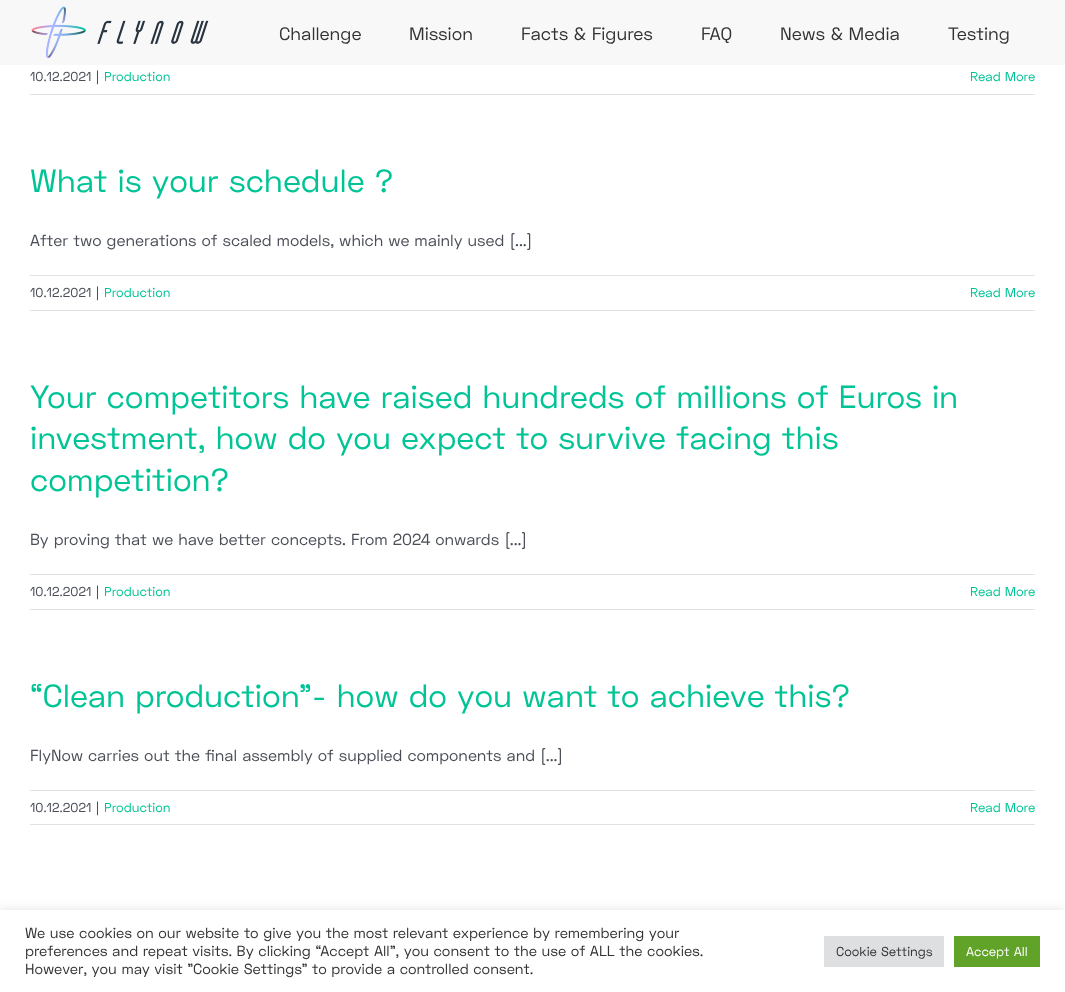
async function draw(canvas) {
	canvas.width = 1065;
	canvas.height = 992;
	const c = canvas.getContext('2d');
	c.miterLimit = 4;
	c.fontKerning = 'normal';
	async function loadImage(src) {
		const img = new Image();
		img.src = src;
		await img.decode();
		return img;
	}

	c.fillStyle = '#fff';
	c.fillRect(0, 0, 1065, 992);
	c.fillStyle = '#f8f8f8';
	c.fillRect(0, 0, 1065, 65);
	c.drawImage(await loadImage('img1.png'), 31, 6, 178, 53);
	c.font = '18px Space Grotesk';
	c.fillStyle = '#333';
	for (const [text, x, y] of [
		['Challenge', 279, 40],
		['Mission', 409, 40],
		['Facts & Figures', 521, 40],
		['FAQ', 701, 40],
		['News & Media', 780, 40],
		['Testing', 948, 40],
	]) {
		c.fillText(text, x, y);
	}
	c.fillStyle = '#e2e2e2';
	c.fillRect(30, 94, 1005, 1);
	c.font = '13px Space Grotesk';
	c.fillStyle = '#4a4e57';
	c.fillText('10.12.2021', 30, 81);
	c.fillText('|', 96, 81);
	c.fillStyle = '#00c495';
	c.fillText('Production', 104, 81);
	c.fillText('Read More', 970, 81);
	c.font = '32px Space Grotesk';
	c.fillText('What is your schedule ?', 30, 192);
	c.font = '16px Space Grotesk';
	c.fillStyle = '#4a4e57';
	c.fillText('After two generations of scaled models, which we mainly used [...]', 30, 246);
	c.fillStyle = '#e2e2e2';
	c.fillRect(30, 275, 1005, 1);
	c.fillRect(30, 310, 1005, 1);
	c.font = '13px Space Grotesk';
	c.fillStyle = '#4a4e57';
	c.fillText('10.12.2021', 30, 297);
	c.fillText('|', 96, 297);
	c.fillStyle = '#00c495';
	c.fillText('Production', 104, 297);
	c.fillText('Read More', 970, 297);
	c.font = '32px Space Grotesk';
	for (const [text, x, y] of [
		['Your competitors have raised hundreds of millions of Euros in', 30, 408],
		['investment, how do you expect to survive facing this', 30, 449],
		['competition?', 30, 491],
	]) {
		c.fillText(text, x, y);
	}
	c.font = '16px Space Grotesk';
	c.fillStyle = '#4a4e57';
	c.fillText('By proving that we have better concepts. From 2024 onwards [...]', 30, 545);
	c.fillStyle = '#e2e2e2';
	c.fillRect(30, 574, 1005, 1);
	c.fillRect(30, 609, 1005, 1);
	c.font = '13px Space Grotesk';
	c.fillStyle = '#4a4e57';
	c.fillText('10.12.2021', 30, 596);
	c.fillText('|', 96, 596);
	c.fillStyle = '#00c495';
	c.fillText('Production', 104, 596);
	c.fillText('Read More', 970, 596);
	c.font = '32px Space Grotesk';
	c.fillText('“Clean production”- how do you want to achieve this?', 30, 707);
	c.font = '16px Space Grotesk';
	c.fillStyle = '#4a4e57';
	c.fillText('FlyNow carries out the final assembly of supplied components and [...]', 30, 761);
	c.fillStyle = '#e2e2e2';
	c.fillRect(30, 790, 1005, 1);
	c.fillRect(30, 824, 1005, 1);
	c.font = '13px Space Grotesk';
	c.fillStyle = '#4a4e57';
	c.fillText('10.12.2021', 30, 812);
	c.fillText('|', 96, 812);
	c.fillStyle = '#00c495';
	c.fillText('Production', 104, 812);
	c.fillText('Read More', 970, 812);
	c.fillStyle = '#acabab4d';
	c.filter = 'blur(5px)';
	c.beginPath();
	c.rect(0, 909, 1065, 82);
	c.fill();
	c.filter = 'none';
	c.fillStyle = '#fff';
	c.fillRect(0, 910, 1065, 82);
	c.font = '14.65px Space Grotesk';
	c.fillStyle = '#333';
	for (const [text, x, y] of [
		['We use cookies on our website to give you the most relevant experience by remembering your', 25, 938],
		['preferences and repeat visits. By clicking “Accept All”, you consent to the use of ALL the cookies.', 25, 956],
		['However, you may visit "Cookie Settings" to provide a controlled consent.', 25, 974],
	]) {
		c.fillText(text, x, y);
	}
	c.fillStyle = '#dedfe0';
	c.fillRect(824, 936, 120, 31);
	c.font = '13px Space Grotesk';
	c.fillStyle = '#333';
	c.fillText('Cookie Settings', 836, 956);
	c.fillStyle = '#61a229';
	c.fillRect(954, 936, 86, 31);
	c.fillStyle = '#fff';
	c.fillText('Accept All', 966, 956);
}

draw(document.querySelector('canvas'));
